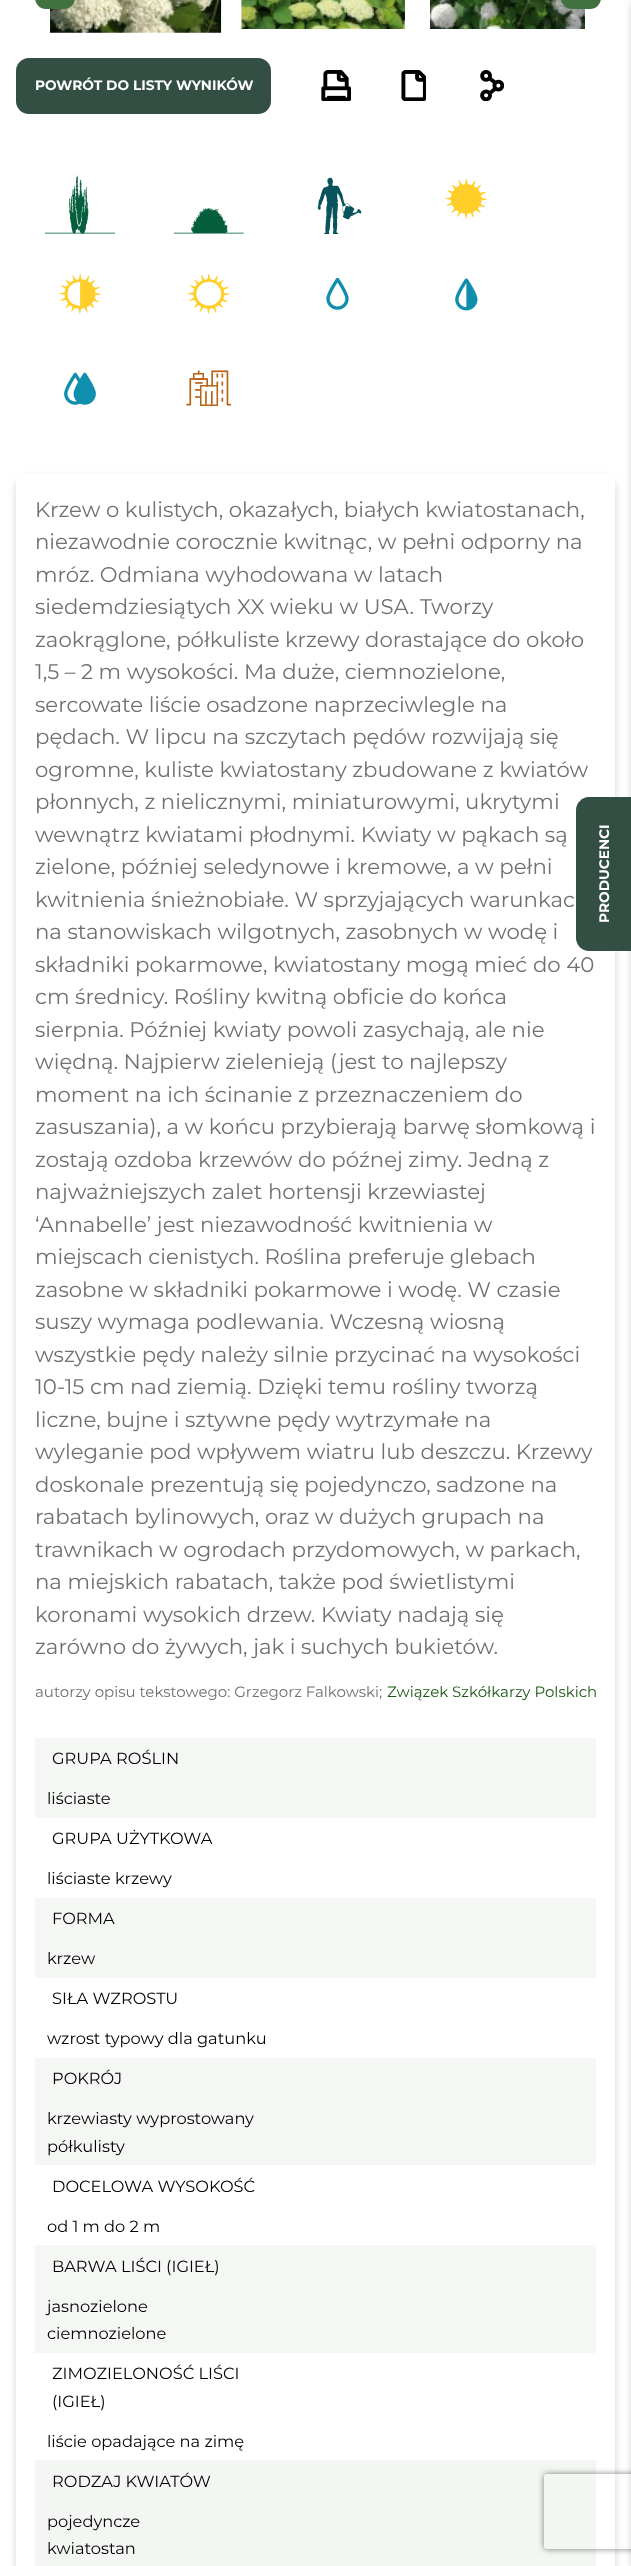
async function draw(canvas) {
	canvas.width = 631;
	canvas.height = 2566;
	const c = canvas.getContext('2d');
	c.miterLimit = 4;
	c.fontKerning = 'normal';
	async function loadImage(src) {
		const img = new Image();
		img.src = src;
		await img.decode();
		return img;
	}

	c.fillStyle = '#fff';
	c.fillRect(0, 0, 631, 2566);
	c.drawImage(await loadImage('img1.png'), 50, 0, 172, 33);
	c.fillStyle = '#41713f';
	c.beginPath();
	c.roundRect(35, -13, 40, 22, 13);
	c.fill();
	c.drawImage(await loadImage('img3.png'), 430, 0, 155, 29);
	c.beginPath();
	c.roundRect(561, -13, 40, 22, 13);
	c.fill();
	c.drawImage(await loadImage('img2.png'), 241, 0, 164, 29);
	c.fillStyle = '#334e42';
	c.beginPath();
	c.roundRect(16, 58, 255, 56, 13);
	c.fill();
	c.font = 'bold 13.75px Montserrat';
	c.fillStyle = '#fff';
	c.fillText('POWRÓT DO LISTY WYNIKÓW', 35, 90);
	c.drawImage(await loadImage('img4.png'), 321, 70, 30, 31);
	c.drawImage(await loadImage('img5.png'), 401, 70, 25, 31);
	c.drawImage(await loadImage('img6.png'), 480, 70, 24, 31);
	c.drawImage(await loadImage('img7.png'), 45, 175, 70, 59);
	c.drawImage(await loadImage('img8.png'), 174, 207, 70, 27);
	c.drawImage(await loadImage('img9.png'), 317, 177, 45, 57);
	c.drawImage(await loadImage('img10.png'), 445, 178, 42, 41);
	c.drawImage(await loadImage('img11.png'), 59, 273, 42, 41);
	c.drawImage(await loadImage('img12.png'), 188, 274, 42, 40);
	c.drawImage(await loadImage('img13.png'), 326, 277, 23, 33);
	c.drawImage(await loadImage('img14.png'), 455, 278, 23, 33);
	c.drawImage(await loadImage('img15.png'), 64, 372, 32, 33);
	c.drawImage(await loadImage('img16.png'), 186, 370, 46, 36);
	c.save();
	c.beginPath();
	c.moveTo(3, 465);
	c.lineTo(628, 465);
	c.lineTo(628, 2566);
	c.lineTo(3, 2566);
	c.closePath();
	c.moveTo(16, 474);
	c.lineTo(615, 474);
	c.lineTo(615, 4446);
	c.bezierCurveTo(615, 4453, 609, 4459, 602, 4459);
	c.lineTo(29, 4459);
	c.bezierCurveTo(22, 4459, 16, 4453, 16, 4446);
	c.closePath();
	c.clip('evenodd');
	c.fillStyle = '#00000029';
	c.filter = 'blur(4px)';
	c.beginPath();
	c.roundRect(16, 478, 599, 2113, 13);
	c.fill();
	c.filter = 'none';
	c.restore();
	c.font = '21.25px Montserrat';
	c.fillStyle = '#707070';
	for (const [text, x, y] of [
		['Krzew o kulistych, okazałych, białych kwiatostanach,', 35, 517],
		['niezawodnie corocznie kwitnąc, w pełni odporny na', 35, 549],
		['mróz. Odmiana wyhodowana w latach', 35, 582],
		['siedemdziesiątych XX wieku w USA. Tworzy', 35, 614],
		['zaokrąglone, półkuliste krzewy dorastające do około', 35, 647],
		['1,5 – 2 m wysokości. Ma duże, ciemnozielone,', 35, 679],
		['sercowate liście osadzone naprzeciwlegle na', 35, 712],
		['pędach. W lipcu na szczytach pędów rozwijają się', 35, 744],
		['ogromne, kuliste kwiatostany zbudowane z kwiatów', 35, 777],
		['płonnych, z nielicznymi, miniaturowymi, ukrytymi', 35, 809],
		['wewnątrz kwiatami płodnymi. Kwiaty w pąkach są', 35, 842],
		['zielone, później seledynowe i kremowe, a w pełni', 35, 874],
		['kwitnienia śnieżnobiałe. W sprzyjających warunkac', 35, 907],
		['na stanowiskach wilgotnych, zasobnych w wodę i', 35, 939],
		['składniki pokarmowe, kwiatostany mogą mieć do 40', 35, 972],
		['cm średnicy. Rośliny kwitną obficie do końca', 35, 1004],
		['sierpnia. Później kwiaty powoli zasychają, ale nie', 35, 1037],
		['więdną. Najpierw zielenieją (jest to najlepszy', 35, 1069],
		['moment na ich ścinanie z przeznaczeniem do', 35, 1102],
		['zasuszania), a w końcu przybierają barwę słomkową i', 35, 1134],
		['zostają ozdoba krzewów do późnej zimy. Jedną z', 35, 1167],
		['najważniejszych zalet hortensji krzewiastej', 35, 1199],
		['‘Annabelle’ jest niezawodność kwitnienia w', 35, 1232],
		['miejscach cienistych. Roślina preferuje glebach', 35, 1264],
		['zasobne w składniki pokarmowe i wodę. W czasie', 35, 1297],
		['suszy wymaga podlewania. Wczesną wiosną', 35, 1329],
		['wszystkie pędy należy silnie przycinać na wysokości', 35, 1362],
		['10-15 cm nad ziemią. Dzięki temu rośliny tworzą', 35, 1394],
		['liczne, bujne i sztywne pędy wytrzymałe na', 35, 1427],
		['wyleganie pod wpływem wiatru lub deszczu. Krzewy', 35, 1459],
		['doskonale prezentują się pojedynczo, sadzone na', 35, 1492],
		['rabatach bylinowych, oraz w dużych grupach na', 35, 1524],
		['trawnikach w ogrodach przydomowych, w parkach,', 35, 1557],
		['na miejskich rabatach, także pod świetlistymi', 35, 1589],
		['koronami wysokich drzew. Kwiaty nadają się', 35, 1622],
		['zarówno do żywych, jak i suchych bukietów.', 35, 1654],
	]) {
		c.fillText(text, x, y);
	}
	c.font = '15px Montserrat';
	c.fillText('autorzy opisu tekstowego: Grzegorz Falkowski;', 35, 1697);
	c.fillStyle = '#1d5716';
	c.fillText('Związek Szkółkarzy Polskich', 387, 1697);
	c.fillStyle = '#f4f7f3';
	c.fillRect(35, 1738, 561, 80);
	c.font = '16.25px Montserrat';
	c.fillStyle = '#000';
	for (const [text, x, y] of [
		['GRUPA ROŚLIN', 52, 1764],
		['liściaste', 47, 1804],
		['GRUPA UŻYTKOWA', 52, 1844],
		['liściaste krzewy', 47, 1884],
	]) {
		c.fillText(text, x, y);
	}
	c.fillStyle = '#f4f7f3';
	c.fillRect(35, 1898, 561, 80);
	c.fillStyle = '#000';
	for (const [text, x, y] of [
		['FORMA', 52, 1924],
		['krzew', 47, 1964],
		['SIŁA WZROSTU', 52, 2004],
		['wzrost typowy dla gatunku', 47, 2044],
	]) {
		c.fillText(text, x, y);
	}
	c.fillStyle = '#f4f7f3';
	c.fillRect(35, 2058, 561, 107);
	c.fillStyle = '#000';
	for (const [text, x, y] of [
		['POKRÓJ', 52, 2084],
		['krzewiasty wyprostowany', 47, 2124],
		['półkulisty', 47, 2152],
		['DOCELOWA WYSOKOŚĆ', 52, 2192],
		['od 1 m do 2 m', 47, 2232],
	]) {
		c.fillText(text, x, y);
	}
	c.fillStyle = '#f4f7f3';
	c.fillRect(35, 2245, 561, 108);
	c.fillStyle = '#000';
	for (const [text, x, y] of [
		['BARWA LIŚCI (IGIEŁ)', 52, 2272],
		['jasnozielone', 47, 2312],
		['ciemnozielone', 47, 2339],
		['ZIMOZIELONOŚĆ LIŚCI', 52, 2379],
		['(IGIEŁ)', 52, 2407],
		['liście opadające na zimę', 47, 2447],
	]) {
		c.fillText(text, x, y);
	}
	c.save();
	c.beginPath();
	c.moveTo(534, 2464);
	c.lineTo(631, 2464);
	c.lineTo(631, 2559);
	c.lineTo(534, 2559);
	c.closePath();
	c.moveTo(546.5, 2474);
	c.lineTo(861.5, 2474);
	c.bezierCurveTo(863, 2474, 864, 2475, 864, 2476.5);
	c.lineTo(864, 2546.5);
	c.bezierCurveTo(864, 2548, 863, 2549, 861.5, 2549);
	c.lineTo(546.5, 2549);
	c.bezierCurveTo(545, 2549, 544, 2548, 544, 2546.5);
	c.lineTo(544, 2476.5);
	c.bezierCurveTo(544, 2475, 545, 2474, 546.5, 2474);
	c.closePath();
	c.clip('evenodd');
	c.fillStyle = '#808080';
	c.filter = 'blur(3px)';
	c.beginPath();
	c.roundRect(544, 2474, 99, 75, 2.5);
	c.fill();
	c.filter = 'none';
	c.restore();
	c.fillStyle = '#1d57160d';
	c.fillRect(35, 2460, 561, 106);
	c.fillStyle = '#000';
	for (const [text, x, y] of [
		['RODZAJ KWIATÓW', 52, 2487],
		['pojedyncze', 47, 2527],
		['kwiatostan', 47, 2554],
	]) {
		c.fillText(text, x, y);
	}
	c.fillStyle = '#00000066';
	c.filter = 'blur(4px)';
	c.beginPath();
	c.rect(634, 3, 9, 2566);
	c.fill();
	c.filter = 'none';
	c.fillStyle = '#334e42';
	c.beginPath();
	c.moveTo(576, 938);
	c.lineTo(576, 810);
	c.bezierCurveTo(576, 803, 582, 797, 589, 797);
	c.lineTo(631, 797);
	c.lineTo(631, 951);
	c.lineTo(589, 951);
	c.bezierCurveTo(582, 951, 576, 945, 576, 938);
	c.closePath();
	c.fill();
	c.font = 'bold 13.75px Montserrat';
	c.fillStyle = '#fff';
	c.save();
	c.translate(609, 923);
	c.rotate(-90 * Math.PI / 180);
	c.fillText('PRODUCENCI', 0, 0);
	c.restore();
}

draw(document.querySelector('canvas'));
